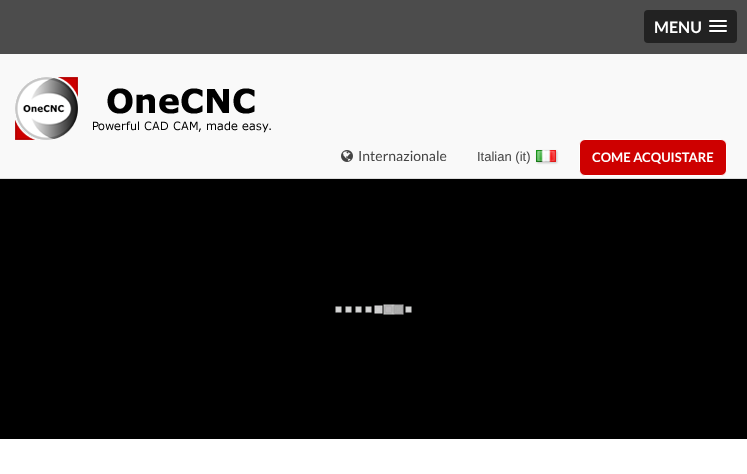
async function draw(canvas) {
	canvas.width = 747;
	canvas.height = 474;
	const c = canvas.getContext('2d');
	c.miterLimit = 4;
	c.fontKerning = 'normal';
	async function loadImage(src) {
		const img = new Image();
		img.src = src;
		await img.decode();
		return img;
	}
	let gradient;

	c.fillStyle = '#fff';
	c.fillRect(0, 0, 747, 474);
	c.fillStyle = '#4c4c4c';
	c.fillRect(0, 0, 747, 54);
	c.fillStyle = '#222';
	c.beginPath();
	c.roundRect(644, 10, 93, 33, 4);
	c.fill();
	c.font = 'bold 16px Lato';
	c.fillStyle = '#fff';
	c.fillText('MENU', 654, 33);
	c.fillStyle = '#1a1a1a';
	c.beginPath();
	c.moveTo(709, 21.5);
	c.bezierCurveTo(708, 23.5, 712.5, 23, 712.5, 23);
	c.lineTo(723.5, 23);
	c.bezierCurveTo(723.5, 23, 728, 23.5, 727, 21.5);
	c.bezierCurveTo(726, 22.5, 719.5, 22, 718, 22);
	c.bezierCurveTo(716.5, 22, 710, 22.5, 709, 21.5);
	c.closePath();
	c.fill();
	c.fillStyle = '#fff';
	c.beginPath();
	c.roundRect(709, 20, 18, 2, 1);
	c.fill();
	c.fillStyle = '#1a1a1a';
	c.beginPath();
	c.moveTo(709, 26.5);
	c.bezierCurveTo(708, 28.5, 712.5, 28, 712.5, 28);
	c.lineTo(723.5, 28);
	c.bezierCurveTo(723.5, 28, 728, 28.5, 727, 26.5);
	c.bezierCurveTo(726, 27.5, 719.5, 27, 718, 27);
	c.bezierCurveTo(716.5, 27, 710, 27.5, 709, 26.5);
	c.closePath();
	c.fill();
	c.fillStyle = '#fff';
	c.beginPath();
	c.roundRect(709, 25, 18, 2, 1);
	c.fill();
	c.fillStyle = '#1a1a1a';
	c.beginPath();
	c.moveTo(709, 31.5);
	c.bezierCurveTo(708, 33.5, 712.5, 33, 712.5, 33);
	c.lineTo(723.5, 33);
	c.bezierCurveTo(723.5, 33, 728, 33.5, 727, 31.5);
	c.bezierCurveTo(726, 32.5, 719.5, 32, 718, 32);
	c.bezierCurveTo(716.5, 32, 710, 32.5, 709, 31.5);
	c.closePath();
	c.fill();
	c.fillStyle = '#fff';
	c.beginPath();
	c.roundRect(709, 30, 18, 2, 1);
	c.fill();
	c.fillStyle = '#f9f9f9';
	c.fillRect(0, 54, 747, 124);
	c.fillStyle = '#ddd';
	c.fillRect(0, 178, 747, 1);
	c.drawImage(await loadImage('img1.png'), 15, 77, 256, 63);
	c.drawImage(await loadImage('img2.png'), 341, 150, 12, 12);
	c.font = '14px Lato';
	c.fillStyle = '#444';
	c.fillText('Internazionale', 358, 161);
	c.save();
	c.beginPath();
	c.moveTo(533, 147);
	c.lineTo(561, 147);
	c.lineTo(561, 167);
	c.lineTo(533, 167);
	c.closePath();
	c.moveTo(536, 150);
	c.lineTo(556, 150);
	c.lineTo(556, 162);
	c.lineTo(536, 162);
	c.closePath();
	c.clip('evenodd');
	c.fillStyle = '#4646464d';
	c.filter = 'blur(1px)';
	c.beginPath();
	c.rect(537, 151, 20, 12);
	c.fill();
	c.filter = 'none';
	c.restore();
	c.font = '13px Liberation Sans';
	c.fillText('Italian (it)', 477, 161);
	c.drawImage(await loadImage('img3.png'), 536, 150, 20, 12);
	c.fillStyle = '#ce0000';
	c.beginPath();
	c.roundRect(579.5, 139.5, 147, 36, 5.5);
	c.fill();
	c.strokeStyle = '#fff';
	c.stroke();
	c.font = 'bold 13px Lato';
	c.fillStyle = '#fff';
	c.fillText('COME ACQUISTARE', 592, 162);
	c.fillStyle = '#000';
	c.fillRect(0, 179, 747, 260);
	c.drawImage(await loadImage('img4.png'), 335, 304, 77, 11);
	gradient = c.createLinearGradient(374, 467, 374, 179);
	gradient.addColorStop(0, '#0000000d');
	gradient.addColorStop(1, '#0000001a');
	c.fillStyle = gradient;
	c.fillRect(335, 304, 77, 11);
}

draw(document.querySelector('canvas'));
